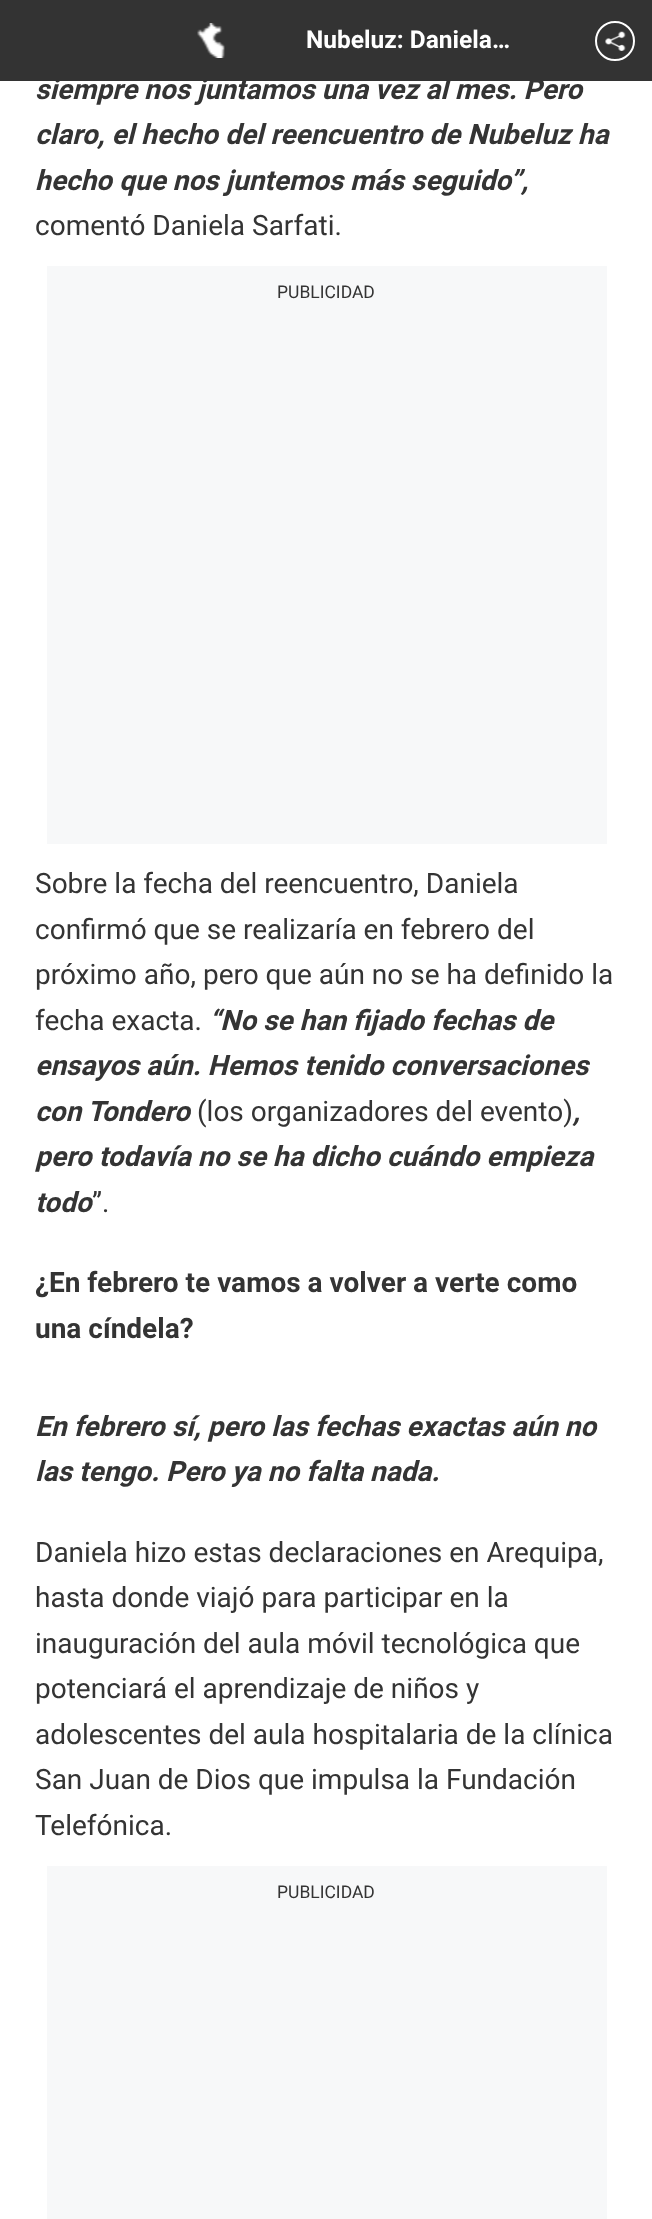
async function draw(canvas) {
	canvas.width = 652;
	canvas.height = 2219;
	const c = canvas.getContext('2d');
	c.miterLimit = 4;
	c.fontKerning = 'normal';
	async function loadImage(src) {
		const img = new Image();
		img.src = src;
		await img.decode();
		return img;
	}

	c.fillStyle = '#fff';
	c.fillRect(0, 0, 652, 2219);
	c.font = 'italic bold 28px Roboto';
	c.fillStyle = '#343434';
	c.fillText('siempre nos juntamos una vez al mes. Pero', 35, 99);
	c.fillStyle = '#333';
	c.fillRect(0, 0, 652, 81);
	c.drawImage(await loadImage('img1.png'), 197, 23, 28, 35);
	c.font = 'bold 24.5px Roboto';
	c.fillStyle = '#fff';
	c.fillText('Nubeluz: Daniela…', 306, 48);
	c.beginPath();
	c.arc(615, 41, 19, 0, 2 * Math.PI);
	c.strokeStyle = '#fff';
	c.lineWidth = 2;
	c.stroke();
	c.drawImage(await loadImage('img2.png'), 605, 31, 21, 20);
	c.font = 'italic bold 28px Roboto';
	c.fillStyle = '#343434';
	c.fillText('claro, el hecho del reencuentro de Nubeluz ha', 35, 144);
	c.fillText('hecho que nos juntemos más seguido”,', 35, 190);
	c.font = '28px Roboto';
	c.fillText('comentó Daniela Sarfati.', 35, 235);
	c.fillStyle = '#f7f8f9';
	c.fillRect(47, 266, 560, 578);
	c.font = '17.5px Roboto';
	c.fillStyle = '#343434';
	c.fillText('PUBLICIDAD', 277, 298);
	c.font = '28px Roboto';
	for (const [text, x, y] of [
		['Sobre la fecha del reencuentro, Daniela', 35, 893],
		['confirmó que se realizaría en febrero del', 35, 939],
		['próximo año, pero que aún no se ha definido la', 35, 984],
		['fecha exacta.', 35, 1030],
	]) {
		c.fillText(text, x, y);
	}
	c.font = 'italic bold 28px Roboto';
	for (const [text, x, y] of [
		['“No se han fijado fechas de', 209, 1030],
		['ensayos aún. Hemos tenido conversaciones', 35, 1075],
		['con Tondero', 35, 1121],
	]) {
		c.fillText(text, x, y);
	}
	c.font = '28px Roboto';
	c.fillText('(los organizadores del evento)', 197, 1121);
	c.font = 'italic bold 28px Roboto';
	for (const [text, x, y] of [
		[',', 573, 1121],
		['pero todavía no se ha dicho cuándo empieza', 35, 1166],
		['todo', 35, 1212],
	]) {
		c.fillText(text, x, y);
	}
	c.font = '28px Roboto';
	c.fillText('”.', 92, 1212);
	c.font = 'bold 28px Roboto';
	c.fillText('¿En febrero te vamos a volver a verte como', 35, 1292);
	c.fillText('una cíndela?', 35, 1338);
	c.font = 'italic bold 28px Roboto';
	c.fillText('En febrero sí, pero las fechas exactas aún no', 35, 1436);
	c.fillText('las tengo. Pero ya no falta nada.', 35, 1481);
	c.font = '28px Roboto';
	for (const [text, x, y] of [
		['Daniela hizo estas declaraciones en Arequipa,', 35, 1562],
		['hasta donde viajó para participar en la', 35, 1607],
		['inauguración del aula móvil tecnológica que', 35, 1653],
		['potenciará el aprendizaje de niños y', 35, 1698],
		['adolescentes del aula hospitalaria de la clínica', 35, 1744],
		['San Juan de Dios que impulsa la Fundación', 35, 1789],
		['Telefónica.', 35, 1835],
	]) {
		c.fillText(text, x, y);
	}
	c.fillStyle = '#f7f8f9';
	c.fillRect(47, 1866, 560, 353);
	c.font = '17.5px Roboto';
	c.fillStyle = '#343434';
	c.fillText('PUBLICIDAD', 277, 1898);
}

draw(document.querySelector('canvas'));
